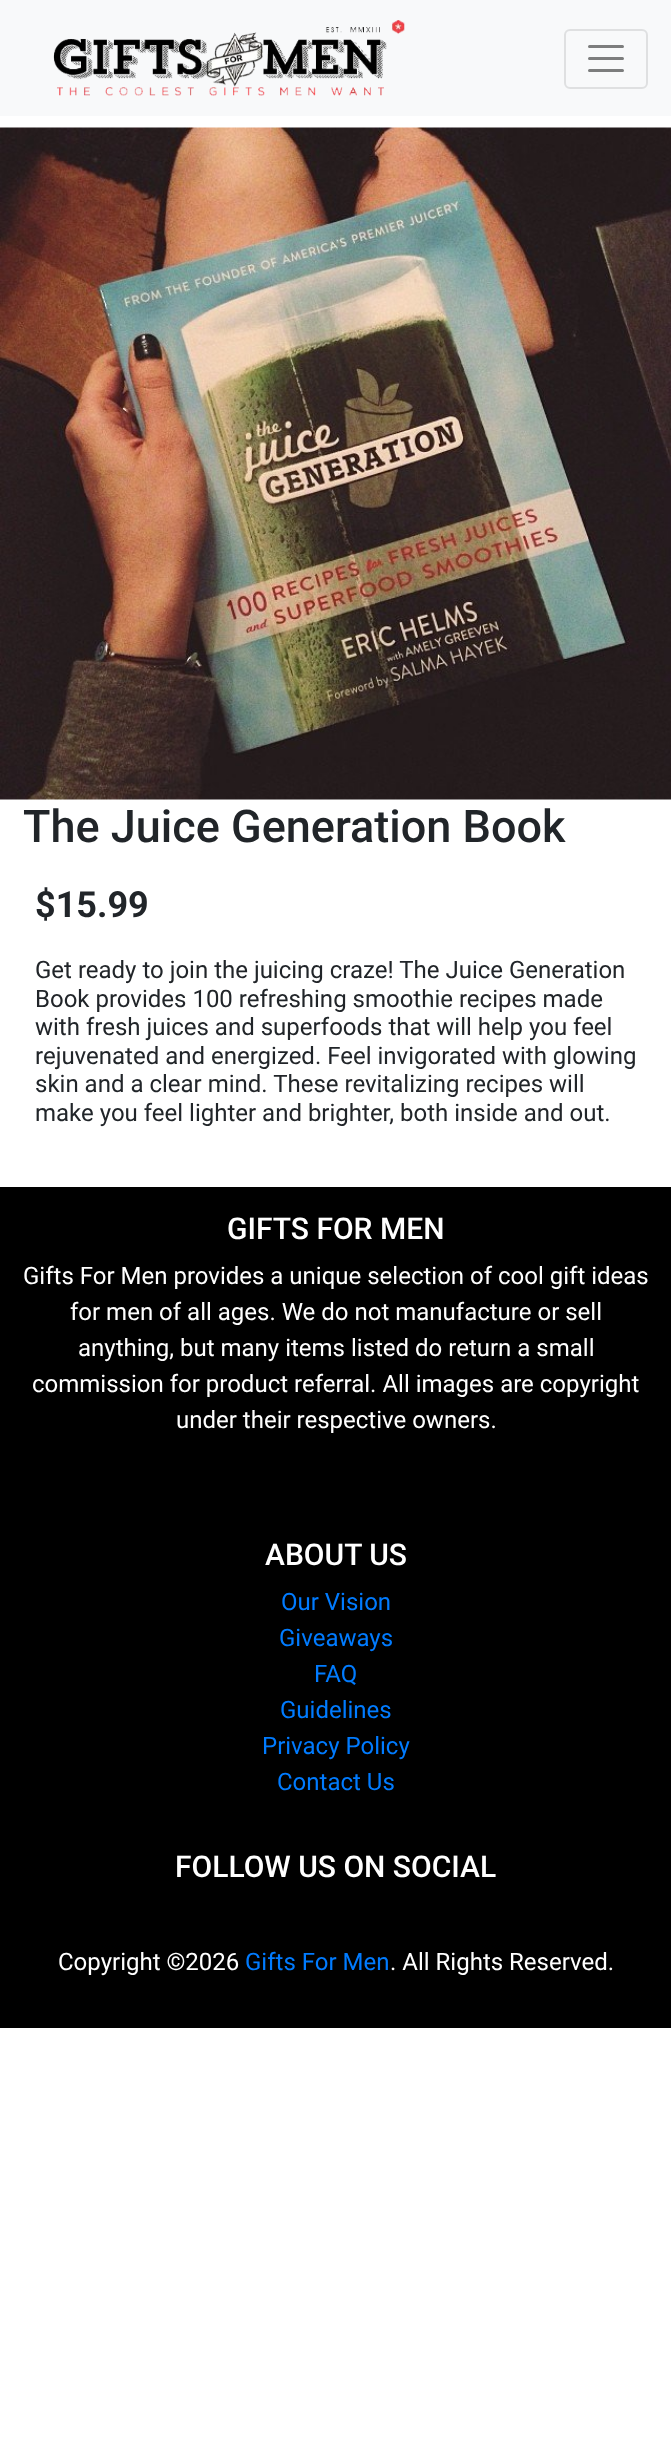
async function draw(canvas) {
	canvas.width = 671;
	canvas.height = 2442;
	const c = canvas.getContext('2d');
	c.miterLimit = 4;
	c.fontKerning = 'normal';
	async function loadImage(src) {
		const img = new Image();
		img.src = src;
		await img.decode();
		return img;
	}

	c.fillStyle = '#fff';
	c.fillRect(0, 0, 671, 2442);
	c.fillStyle = '#f8f9fa';
	c.fillRect(0, 0, 671, 116);
	c.drawImage(await loadImage('img1.png'), 53, 20, 352, 76);
	c.beginPath();
	c.roundRect(565, 30, 82, 58, 5);
	c.strokeStyle = '#dfe0e1';
	c.lineWidth = 2;
	c.stroke();
	c.beginPath();
	c.moveTo(589.5, 46.5);
	c.lineTo(622.5, 46.5);
	c.moveTo(589.5, 58.5);
	c.lineTo(622.5, 58.5);
	c.moveTo(589.5, 70.5);
	c.lineTo(622.5, 70.5);
	c.strokeStyle = '#7c7d7d';
	c.lineWidth = 3;
	c.lineCap = 'round';
	c.stroke();
	c.drawImage(await loadImage('img2.png'), 0, 127, 671, 673);
	c.font = '500 45px Roboto';
	c.fillStyle = '#212529';
	c.fillText('The Juice Generation Book', 23, 842);
	c.font = 'bold 36px Roboto';
	c.fillText('$15.99', 35, 917);
	c.font = '24px Roboto';
	for (const [text, x, y] of [
		['Get ready to join the juicing craze! The Juice Generation', 35, 978],
		['Book provides 100 refreshing smoothie recipes made', 35, 1007],
		['with fresh juices and superfoods that will help you feel', 35, 1035],
		['rejuvenated and energized. Feel invigorated with glowing', 35, 1064],
		['skin and a clear mind. These revitalizing recipes will', 35, 1092],
		['make you feel lighter and brighter, both inside and out.', 35, 1121],
	]) {
		c.fillText(text, x, y);
	}
	c.fillStyle = '#000';
	c.fillRect(0, 1187, 671, 841);
	c.font = '500 30px Roboto';
	c.fillStyle = '#fff';
	c.fillText('GIFTS FOR MEN', 227, 1239);
	c.font = '24px Roboto';
	for (const [text, x, y] of [
		['Gifts For Men provides a unique selection of cool gift ideas', 23, 1284],
		['for men of all ages. We do not manufacture or sell', 70, 1320],
		['anything, but many items listed do return a small', 78, 1356],
		['commission for product referral. All images are copyright', 32, 1392],
		['under their respective owners.', 176, 1428],
	]) {
		c.fillText(text, x, y);
	}
	c.font = '500 30px Roboto';
	c.fillText('ABOUT US', 265, 1565);
	c.font = '24px Roboto';
	c.fillStyle = '#007bff';
	for (const [text, x, y] of [
		['Our Vision', 281, 1610],
		['Giveaways', 279, 1646],
		['FAQ', 314, 1682],
		['Guidelines', 280, 1718],
		['Privacy Policy', 262, 1754],
		['Contact Us', 277, 1790],
	]) {
		c.fillText(text, x, y);
	}
	c.font = '500 30px Roboto';
	c.fillStyle = '#fff';
	c.fillText('FOLLOW US ON SOCIAL', 175, 1877);
	c.font = '24px Roboto';
	c.fillText('Copyright ©2026', 58, 1970);
	c.fillStyle = '#007bff';
	c.fillText('Gifts For Men', 245, 1970);
	c.fillStyle = '#fff';
	c.fillText('. All Rights Reserved.', 390, 1970);
}

draw(document.querySelector('canvas'));
